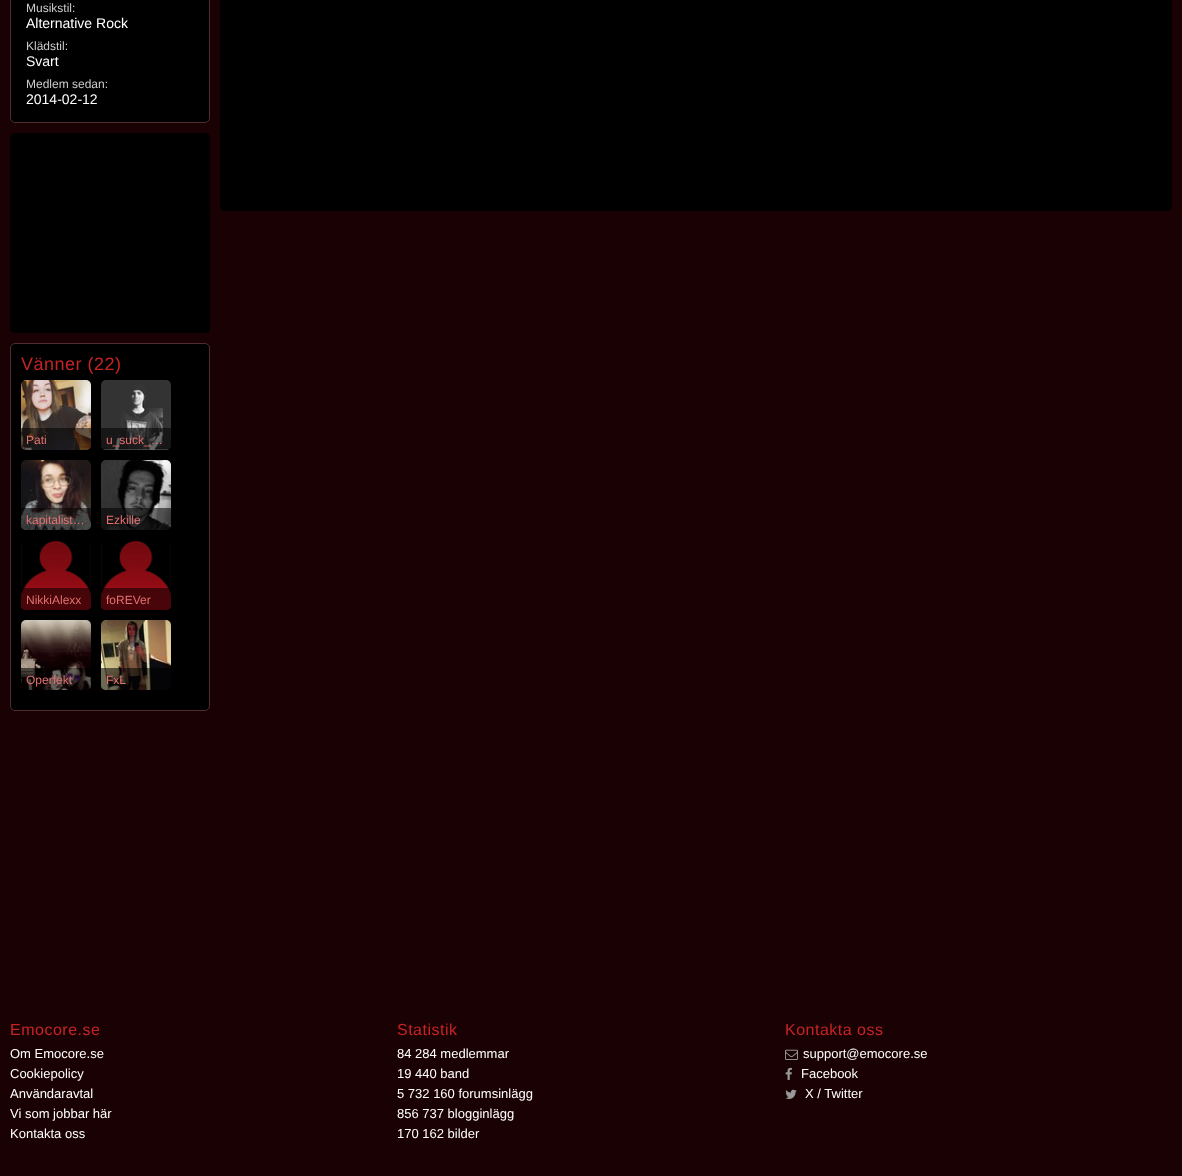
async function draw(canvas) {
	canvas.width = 1182;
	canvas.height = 1176;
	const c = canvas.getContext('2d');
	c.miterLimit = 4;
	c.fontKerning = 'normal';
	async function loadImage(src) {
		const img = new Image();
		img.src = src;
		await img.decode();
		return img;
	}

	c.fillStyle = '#1a0104';
	c.fillRect(0, 0, 1182, 1176);
	c.fillStyle = '#000';
	c.beginPath();
	c.roundRect(10.5, -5.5, 199, 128, 4.5);
	c.fill();
	c.strokeStyle = '#502c30';
	c.stroke();
	c.font = '12px Liberation Sans';
	c.fillStyle = '#ccc';
	c.fillText('Musikstil:', 26, 12);
	c.font = '14px Liberation Sans';
	c.fillStyle = '#fff';
	c.fillText('Alternative Rock', 26, 28);
	c.font = '12px Liberation Sans';
	c.fillStyle = '#ccc';
	c.fillText('Klädstil:', 26, 50);
	c.font = '14px Liberation Sans';
	c.fillStyle = '#fff';
	c.fillText('Svart', 26, 66);
	c.font = '12px Liberation Sans';
	c.fillStyle = '#ccc';
	c.fillText('Medlem sedan:', 26, 88);
	c.font = '14px Liberation Sans';
	c.fillStyle = '#fff';
	c.fillText('2014-02-12', 26, 104);
	c.fillStyle = '#000';
	c.beginPath();
	c.roundRect(10, 133, 200, 200, 5);
	c.fill();
	c.beginPath();
	c.roundRect(10.5, 343.5, 199, 367, 4.5);
	c.fill();
	c.stroke();
	c.letterSpacing = '0.5px';
	c.font = '18px Liberation Sans';
	c.fillStyle = '#c62424';
	c.fillText('Vänner (22)', 21, 370);
	c.drawImage(await loadImage('img1.png'), 21, 380, 70, 70);
	c.fillStyle = '#0000008c';
	c.beginPath();
	c.roundRect(21, 428, 70, 22, [0, 0, 5, 5]);
	c.fill();
	c.letterSpacing = '0px';
	c.font = '12px Liberation Sans';
	c.fillStyle = '#e57171';
	c.fillText('Pati', 26, 444);
	c.drawImage(await loadImage('img2.png'), 101, 380, 70, 70);
	c.fillStyle = '#0000008c';
	c.beginPath();
	c.roundRect(101, 428, 70, 22, [0, 0, 5, 5]);
	c.fill();
	c.fillStyle = '#e57171';
	c.fillText('u_suck_…', 106, 444);
	c.drawImage(await loadImage('img3.png'), 21, 460, 70, 70);
	c.fillStyle = '#0000008c';
	c.beginPath();
	c.roundRect(21, 508, 70, 22, [0, 0, 5, 5]);
	c.fill();
	c.fillStyle = '#e57171';
	c.fillText('kapitalist…', 26, 524);
	c.drawImage(await loadImage('img4.png'), 101, 460, 70, 70);
	c.fillStyle = '#0000008c';
	c.beginPath();
	c.roundRect(101, 508, 70, 22, [0, 0, 5, 5]);
	c.fill();
	c.fillStyle = '#e57171';
	c.fillText('Ezkille', 106, 524);
	c.drawImage(await loadImage('img5.png'), 21, 541, 70, 69);
	c.fillStyle = '#0000008c';
	c.beginPath();
	c.roundRect(21, 588, 70, 22, [0, 0, 5, 5]);
	c.fill();
	c.fillStyle = '#e57171';
	c.fillText('NikkiAlexx', 26, 604);
	c.drawImage(await loadImage('img6.png'), 101, 541, 70, 69);
	c.fillStyle = '#0000008c';
	c.beginPath();
	c.roundRect(101, 588, 70, 22, [0, 0, 5, 5]);
	c.fill();
	c.fillStyle = '#e57171';
	c.fillText('foREVer', 106, 604);
	c.drawImage(await loadImage('img7.png'), 21, 620, 70, 70);
	c.fillStyle = '#0000008c';
	c.beginPath();
	c.roundRect(21, 668, 70, 22, [0, 0, 5, 5]);
	c.fill();
	c.fillStyle = '#e57171';
	c.fillText('Operfekt', 26, 684);
	c.drawImage(await loadImage('img8.png'), 101, 620, 70, 70);
	c.fillStyle = '#0000008c';
	c.beginPath();
	c.roundRect(101, 668, 70, 22, [0, 0, 5, 5]);
	c.fill();
	c.fillStyle = '#e57171';
	c.fillText('FxL', 106, 684);
	c.fillStyle = '#000';
	c.beginPath();
	c.roundRect(220, -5, 952, 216, 5);
	c.fill();
	c.letterSpacing = '0.5px';
	c.font = '16px Liberation Sans';
	c.fillStyle = '#c62424';
	c.fillText('Emocore.se', 10, 1035);
	c.letterSpacing = '0px';
	c.font = '13px Liberation Sans';
	c.fillStyle = '#fff';
	for (const [text, x, y] of [
		['Om Emocore.se', 10, 1058],
		['Cookiepolicy', 10, 1078],
		['Användaravtal', 10, 1098],
		['Vi som jobbar här', 10, 1118],
		['Kontakta oss', 10, 1138],
	]) {
		c.fillText(text, x, y);
	}
	c.letterSpacing = '0.5px';
	c.font = '16px Liberation Sans';
	c.fillStyle = '#c62424';
	c.fillText('Statistik', 397, 1035);
	c.letterSpacing = '0px';
	c.font = '13px Liberation Sans';
	c.fillStyle = '#fff';
	for (const [text, x, y] of [
		['84 284 medlemmar', 397, 1058],
		['19 440 band', 397, 1078],
		['5 732 160 forumsinlägg', 397, 1098],
		['856 737 blogginlägg', 397, 1118],
		['170 162 bilder', 397, 1138],
	]) {
		c.fillText(text, x, y);
	}
	c.letterSpacing = '0.5px';
	c.font = '16px Liberation Sans';
	c.fillStyle = '#c62424';
	c.fillText('Kontakta oss', 785, 1035);
	c.drawImage(await loadImage('img9.png'), 785, 1049, 13, 11);
	c.letterSpacing = '0px';
	c.font = '13px Liberation Sans';
	c.fillStyle = '#fff';
	c.fillText('support@emocore.se', 803, 1058);
	c.drawImage(await loadImage('img10.png'), 785, 1067, 7, 13);
	c.fillText('Facebook', 801, 1078);
	c.drawImage(await loadImage('img11.png'), 785, 1089, 12, 10);
	c.fillText('X / Twitter', 805, 1098);
}

draw(document.querySelector('canvas'));
